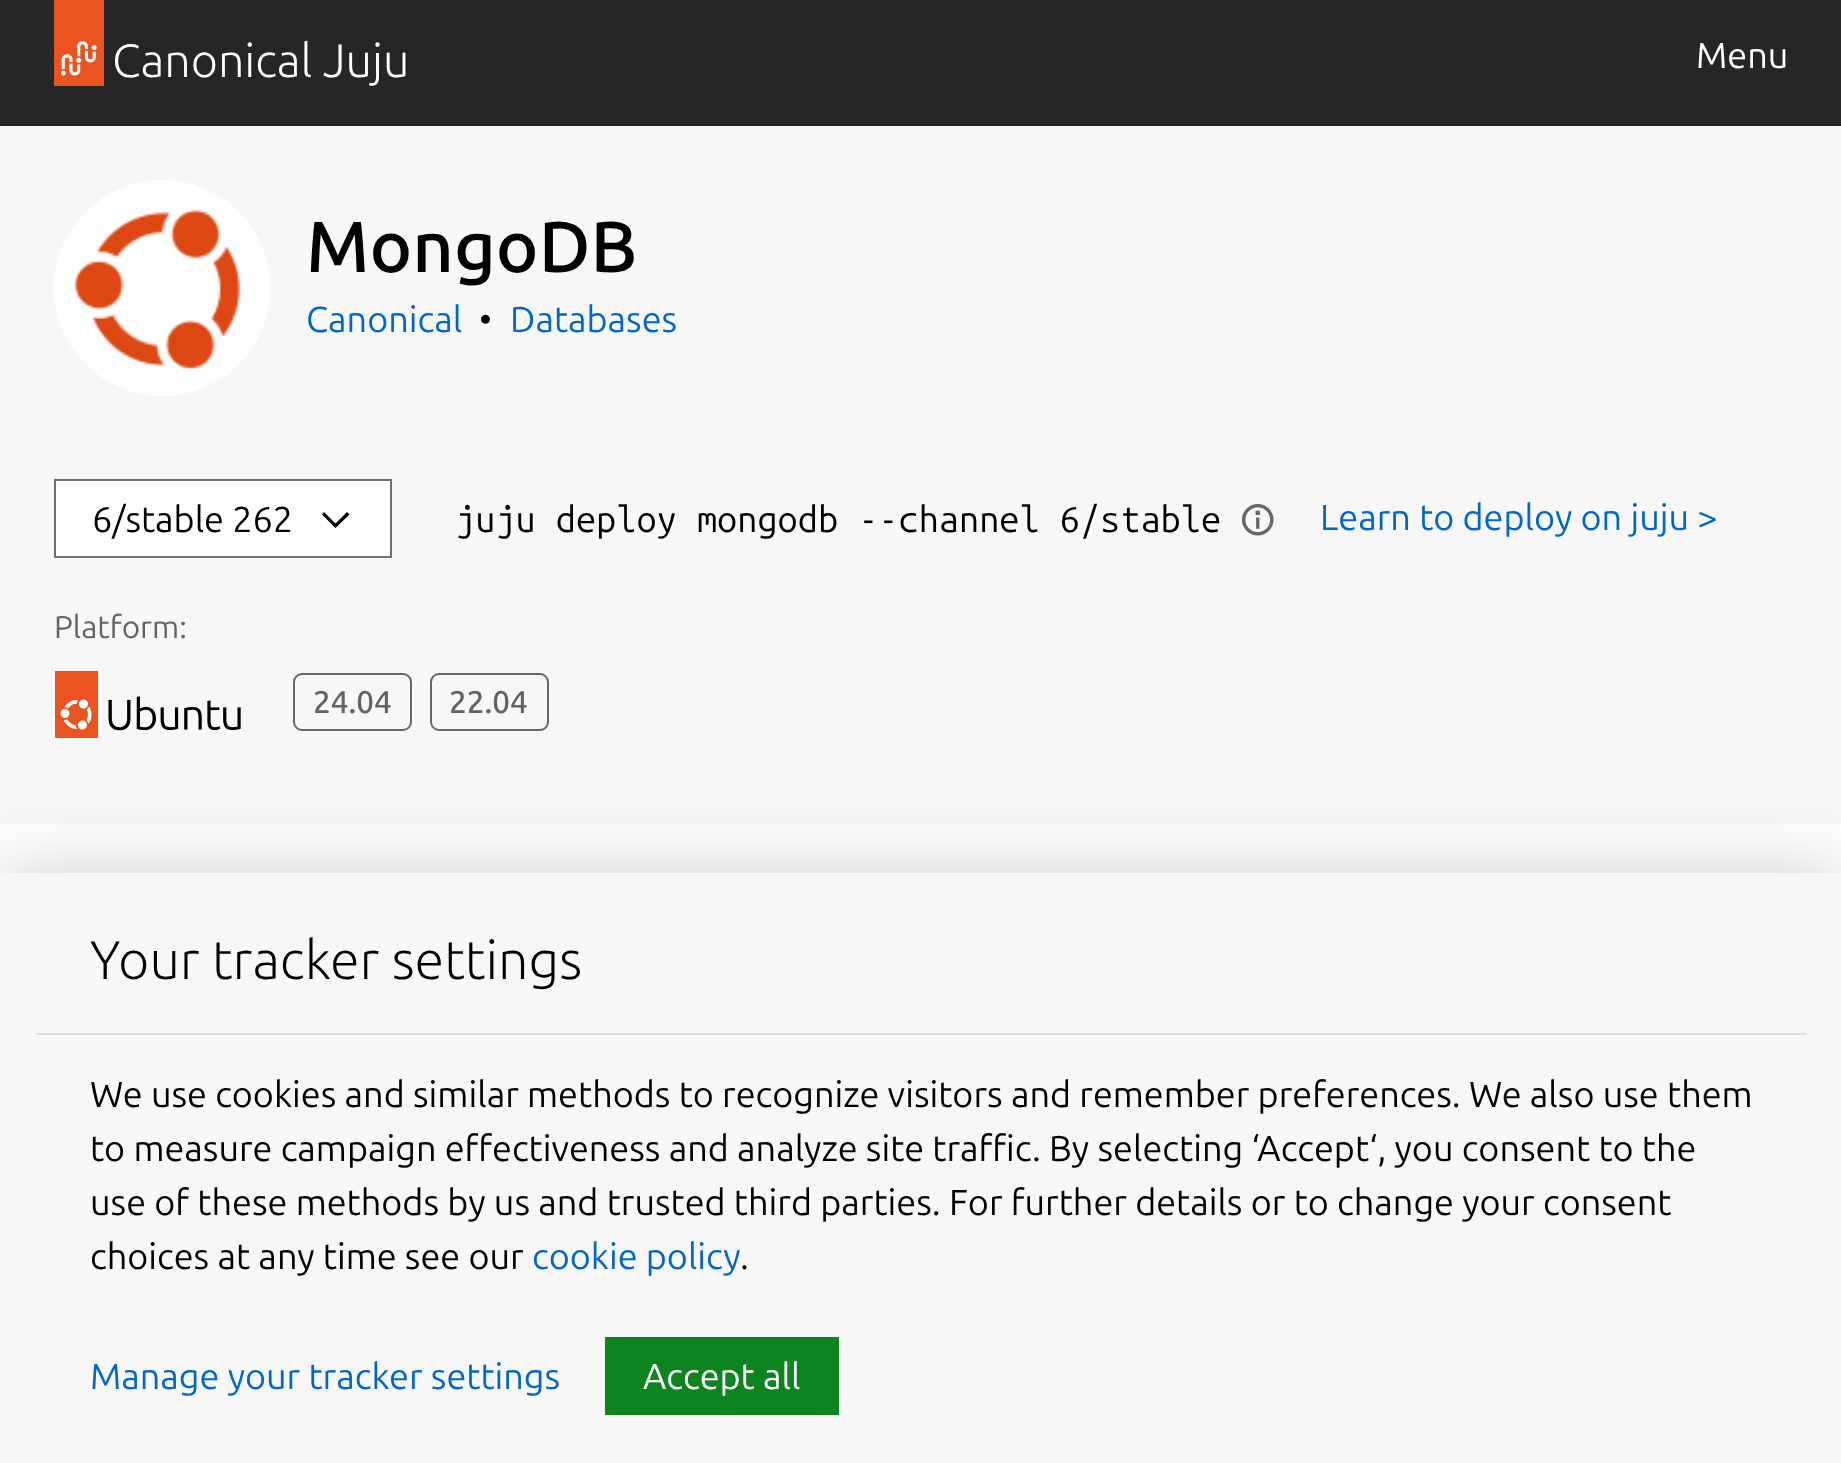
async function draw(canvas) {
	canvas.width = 1841;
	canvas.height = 1463;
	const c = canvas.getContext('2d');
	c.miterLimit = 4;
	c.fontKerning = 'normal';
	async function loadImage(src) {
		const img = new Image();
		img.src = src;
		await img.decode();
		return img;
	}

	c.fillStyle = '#fff';
	c.fillRect(0, 0, 1841, 1463);
	c.fillStyle = '#262626';
	c.fillRect(0, 0, 1841, 126);
	c.fillStyle = '#e95420';
	c.fillRect(54, 0, 50, 86);
	c.drawImage(await loadImage('img1.png'), 61, 41, 36, 35);
	c.font = '300 46.75px Ubuntu';
	c.fillStyle = '#fff';
	c.fillText('Canonical Juju', 112, 77);
	c.font = '36px Ubuntu';
	c.fillText('Menu', 1696, 68);
	c.fillStyle = '#f7f7f7';
	c.fillRect(0, 126, 1841, 698);
	c.drawImage(await loadImage('img2.png'), 54, 180, 216, 216);
	c.font = '500 72px Ubuntu';
	c.fillStyle = '#000';
	c.fillText('MongoDB', 306, 272);
	c.font = '36px Ubuntu';
	c.fillStyle = '#06c';
	c.fillText('Canonical', 306, 332);
	c.fillStyle = '#000';
	c.fillText('•', 479, 332);
	c.fillStyle = '#06c';
	c.fillText('Databases', 510, 332);
	c.fillStyle = '#fff';
	c.beginPath();
	c.rect(55, 480, 336, 77);
	c.fill();
	c.strokeStyle = '#707070';
	c.lineWidth = 2;
	c.stroke();
	c.fillStyle = '#000';
	c.fillText('6/stable 262', 92, 532);
	c.beginPath();
	c.moveTo(335.5, 528);
	c.lineTo(349.5, 514.5);
	c.lineTo(347, 512);
	c.lineTo(335.5, 523.5);
	c.lineTo(324, 512);
	c.lineTo(322, 514.5);
	c.closePath();
	c.fill();
	c.font = '36px Ubuntu Mono';
	c.fillText('juju deploy mongodb --channel 6/stable', 455, 532);
	c.drawImage(await loadImage('img3.png'), 1242, 504, 32, 32);
	c.font = '36px Ubuntu';
	c.fillStyle = '#06c';
	c.fillText('Learn to deploy on juju >', 1320, 530);
	c.font = '31.5px Ubuntu';
	c.fillStyle = '#636363';
	c.fillText('Platform:', 54, 638);
	c.drawImage(await loadImage('img4.png'), 55, 671, 186, 67);
	c.beginPath();
	c.roundRect(294, 674, 117, 56, 8);
	c.strokeStyle = '#666';
	c.stroke();
	c.font = '500 31.5px "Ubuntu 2"';
	c.fillText('24.04', 313, 713);
	c.beginPath();
	c.roundRect(431, 674, 117, 56, 8);
	c.stroke();
	c.fillText('22.04', 449, 713);
	c.fillStyle = '#00000033';
	c.filter = 'blur(36px)';
	c.beginPath();
	c.rect(0, 873, 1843, 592);
	c.fill();
	c.filter = 'none';
	c.fillStyle = '#f7f7f7';
	c.fillRect(0, 873, 1841, 590);
	c.font = '300 54px "Ubuntu 2"';
	c.fillStyle = '#000';
	c.fillText('Your tracker settings', 90, 979);
	c.fillStyle = '#dedede';
	c.fillRect(36, 1033, 1771, 2);
	c.font = '36px Ubuntu';
	c.fillStyle = '#000';
	for (const [text, x, y] of [
		['We use cookies and similar methods to recognize visitors and remember preferences. We also use them', 90, 1107],
		['to measure campaign effectiveness and analyze site traffic. By selecting ‘Accept‘, you consent to the', 90, 1161],
		['use of these methods by us and trusted third parties. For further details or to change your consent', 90, 1215],
		['choices at any time see our', 90, 1269],
	]) {
		c.fillText(text, x, y);
	}
	c.fillStyle = '#06c';
	c.fillText('cookie policy', 532, 1269);
	c.fillStyle = '#000';
	c.fillText('.', 740, 1269);
	c.fillStyle = '#06c';
	c.fillText('Manage your tracker settings', 90, 1389);
	c.fillStyle = '#0e8420';
	c.fillRect(605, 1337, 234, 78);
	c.fillStyle = '#fff';
	c.fillText('Accept all', 643, 1389);
}

draw(document.querySelector('canvas'));
